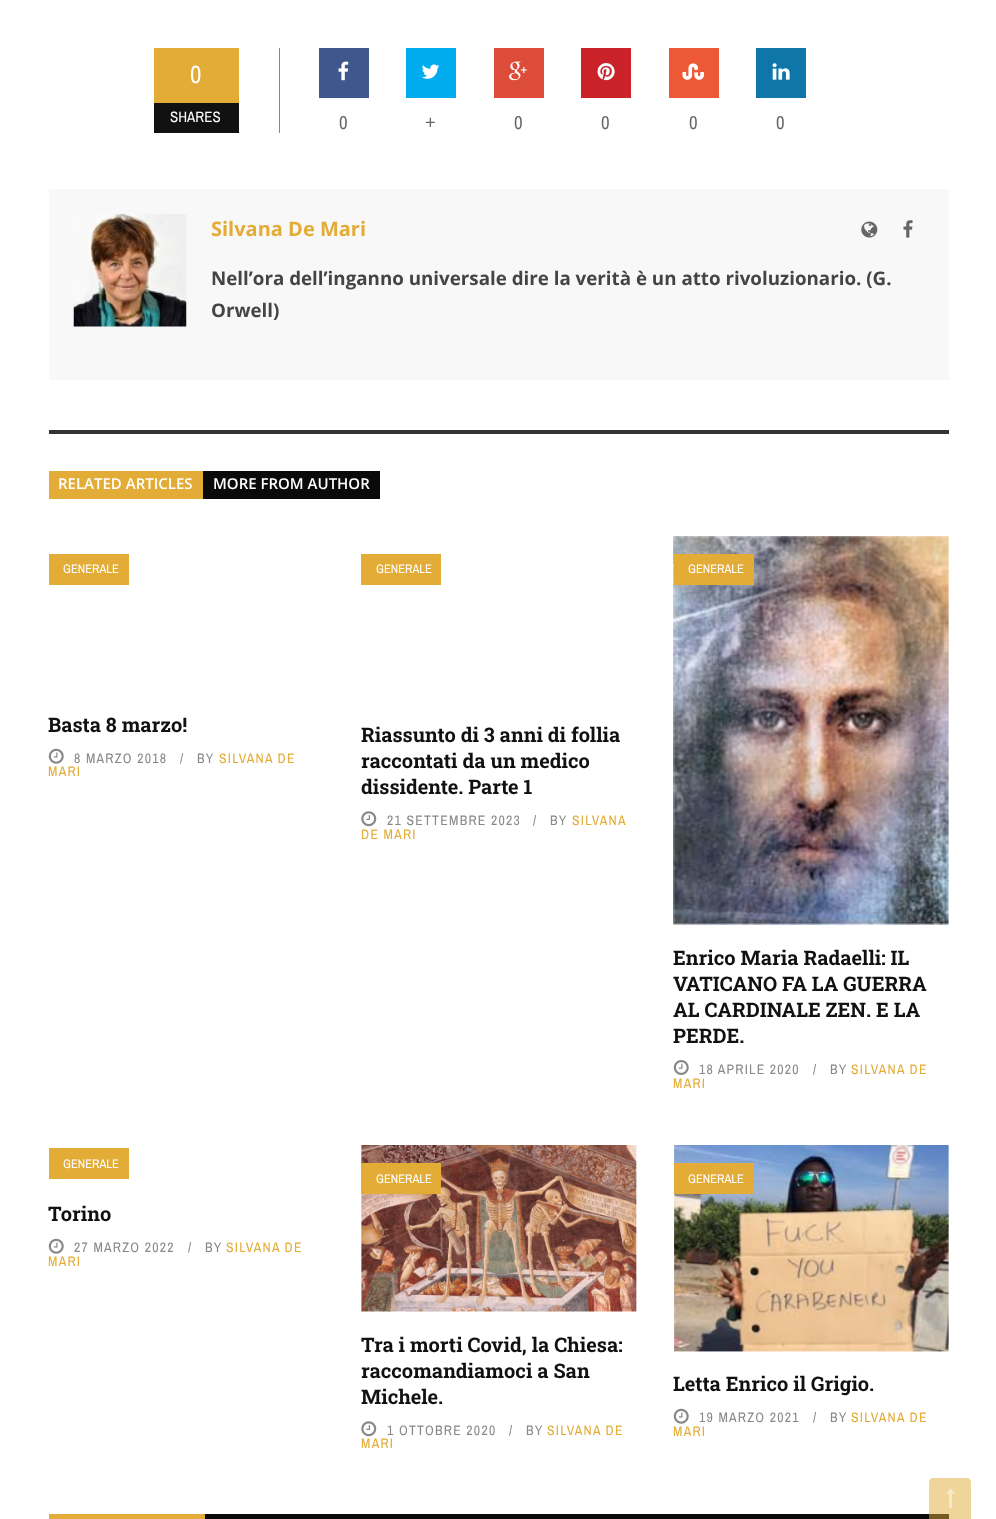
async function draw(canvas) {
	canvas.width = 996;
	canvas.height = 1519;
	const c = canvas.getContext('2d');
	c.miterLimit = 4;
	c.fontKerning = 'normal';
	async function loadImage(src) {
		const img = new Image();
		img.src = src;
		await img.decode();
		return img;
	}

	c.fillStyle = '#fff';
	c.fillRect(0, 0, 996, 1519);
	c.fillStyle = '#888';
	c.fillRect(279, 48, 1, 85);
	c.fillStyle = '#e2ac36';
	c.fillRect(154, 48, 85, 55);
	c.font = '25px Archivo Narrow';
	c.fillStyle = '#fff';
	c.fillText('0', 190, 83);
	c.fillStyle = '#111';
	c.fillRect(154, 103, 85, 30);
	c.font = '15px Archivo Narrow';
	c.fillStyle = '#fff';
	c.fillText('SHARES', 170, 122);
	c.fillStyle = '#3e578c';
	c.fillRect(319, 48, 50, 50);
	c.drawImage(await loadImage('img1.png'), 338, 61, 11, 20);
	c.font = '18.75px Archivo Narrow';
	c.fillStyle = '#666';
	c.fillText('0', 339, 129);
	c.fillStyle = '#00acee';
	c.fillRect(406, 48, 50, 50);
	c.drawImage(await loadImage('img2.png'), 422, 64, 18, 15);
	c.font = '18.75px Open Sans';
	c.fillStyle = '#666';
	c.fillText('+', 425, 129);
	c.fillStyle = '#dd4b39';
	c.fillRect(494, 48, 50, 50);
	c.drawImage(await loadImage('img3.png'), 509, 61, 18, 20);
	c.font = '18.75px Archivo Narrow';
	c.fillStyle = '#666';
	c.fillText('0', 514, 129);
	c.fillStyle = '#c92228';
	c.fillRect(581, 48, 50, 50);
	c.drawImage(await loadImage('img4.png'), 597, 63, 18, 18);
	c.fillStyle = '#666';
	c.fillText('0', 601, 129);
	c.fillStyle = '#ed5934';
	c.fillRect(669, 48, 50, 50);
	c.drawImage(await loadImage('img5.png'), 682, 63, 22, 17);
	c.fillStyle = '#666';
	c.fillText('0', 689, 129);
	c.fillStyle = '#0e76a8';
	c.fillRect(756, 48, 50, 50);
	c.drawImage(await loadImage('img6.png'), 772, 63, 18, 17);
	c.fillStyle = '#666';
	c.fillText('0', 776, 129);
	c.fillStyle = '#f8f8f8';
	c.fillRect(49, 189, 900, 191);
	c.drawImage(await loadImage('img7.png'), 73, 214, 114, 113);
	c.font = 'bold 20px Open Sans';
	c.fillStyle = '#e2ac36';
	c.fillText('Silvana De Mari', 211, 236);
	c.drawImage(await loadImage('img8.png'), 861, 221, 17, 17);
	c.drawImage(await loadImage('img9.png'), 903, 220, 10, 18);
	c.font = 'bold 18.75px Open Sans';
	c.fillStyle = '#444';
	c.fillText('Nell’ora dell’inganno universale dire la verità è un atto rivoluzionario. (G.', 211, 285);
	c.fillText('Orwell)', 211, 317);
	c.fillStyle = '#333';
	c.fillRect(49, 430, 900, 4);
	c.fillStyle = '#e2ac36';
	c.fillRect(49, 471, 154, 28);
	c.font = '600 15px Open Sans';
	c.fillStyle = '#fff';
	c.fillText('RELATED ARTICLES', 58, 489);
	c.fillStyle = '#0a0a0a';
	c.fillRect(203, 471, 177, 28);
	c.fillStyle = '#fff';
	c.fillText('MORE FROM AUTHOR', 213, 489);
	c.fillStyle = '#e2ac36';
	c.fillRect(49, 554, 80, 31);
	c.font = '12.5px Archivo Narrow';
	c.fillStyle = '#fff';
	c.fillText('GENERALE', 63, 573);
	c.font = 'bold 20px Roboto Slab';
	c.fillStyle = '#111';
	c.fillText('Basta 8 marzo!', 48, 732);
	c.drawImage(await loadImage('img10.png'), 48, 748, 16, 16);
	c.letterSpacing = '1.25px';
	c.font = '13.75px Archivo Narrow';
	c.fillStyle = '#888';
	for (const [text, x, y] of [
		['8 MARZO 2018', 74, 763],
		['/', 180, 763],
		['BY', 197, 763],
	]) {
		c.fillText(text, x, y);
	}
	c.fillStyle = '#e2ac36';
	c.fillText('SILVANA DE', 219, 763);
	c.fillText('MARI', 48, 776);
	c.fillRect(361, 554, 80, 31);
	c.letterSpacing = '0px';
	c.font = '12.5px Archivo Narrow';
	c.fillStyle = '#fff';
	c.fillText('GENERALE', 376, 573);
	c.font = 'bold 20px Roboto Slab';
	c.fillStyle = '#111';
	for (const [text, x, y] of [
		['Riassunto di 3 anni di follia', 361, 742],
		['raccontati da un medico', 361, 768],
		['dissidente. Parte 1', 361, 794],
	]) {
		c.fillText(text, x, y);
	}
	c.drawImage(await loadImage('img11.png'), 361, 811, 16, 16);
	c.letterSpacing = '1.25px';
	c.font = '13.75px Archivo Narrow';
	c.fillStyle = '#888';
	for (const [text, x, y] of [
		['21 SETTEMBRE 2023', 387, 825],
		['/', 533, 825],
		['BY', 550, 825],
	]) {
		c.fillText(text, x, y);
	}
	c.fillStyle = '#e2ac36';
	c.fillText('SILVANA', 572, 825);
	c.fillText('DE MARI', 361, 839);
	c.drawImage(await loadImage('img12.png'), 673, 536, 276, 389);
	c.fillRect(674, 554, 80, 31);
	c.letterSpacing = '0px';
	c.font = '12.5px Archivo Narrow';
	c.fillStyle = '#fff';
	c.fillText('GENERALE', 688, 573);
	c.font = 'bold 20px Roboto Slab';
	c.fillStyle = '#111';
	for (const [text, x, y] of [
		['Enrico Maria Radaelli: IL', 673, 965],
		['VATICANO FA LA GUERRA', 673, 991],
		['AL CARDINALE ZEN. E LA', 673, 1017],
		['PERDE.', 673, 1043],
	]) {
		c.fillText(text, x, y);
	}
	c.drawImage(await loadImage('img13.png'), 673, 1060, 16, 15);
	c.letterSpacing = '1.25px';
	c.font = '13.75px Archivo Narrow';
	c.fillStyle = '#888';
	for (const [text, x, y] of [
		['18 APRILE 2020', 699, 1074],
		['/', 813, 1074],
		['BY', 830, 1074],
	]) {
		c.fillText(text, x, y);
	}
	c.fillStyle = '#e2ac36';
	c.fillText('SILVANA DE', 851, 1074);
	c.fillText('MARI', 673, 1088);
	c.fillRect(49, 1148, 80, 31);
	c.letterSpacing = '0px';
	c.font = '12.5px Archivo Narrow';
	c.fillStyle = '#fff';
	c.fillText('GENERALE', 63, 1168);
	c.font = 'bold 20px Roboto Slab';
	c.fillStyle = '#111';
	c.fillText('Torino', 48, 1221);
	c.drawImage(await loadImage('img10.png'), 48, 1238, 16, 16);
	c.letterSpacing = '1.25px';
	c.font = '13.75px Archivo Narrow';
	c.fillStyle = '#888';
	for (const [text, x, y] of [
		['27 MARZO 2022', 74, 1252],
		['/', 188, 1252],
		['BY', 205, 1252],
	]) {
		c.fillText(text, x, y);
	}
	c.fillStyle = '#e2ac36';
	c.fillText('SILVANA DE', 226, 1252);
	c.fillText('MARI', 48, 1266);
	c.drawImage(await loadImage('img14.png'), 361, 1145, 276, 167);
	c.fillRect(361, 1163, 80, 31);
	c.letterSpacing = '0px';
	c.font = '12.5px Archivo Narrow';
	c.fillStyle = '#fff';
	c.fillText('GENERALE', 376, 1183);
	c.font = 'bold 20px Roboto Slab';
	c.fillStyle = '#111';
	for (const [text, x, y] of [
		['Tra i morti Covid, la Chiesa:', 361, 1352],
		['raccomandiamoci a San', 361, 1378],
		['Michele.', 361, 1404],
	]) {
		c.fillText(text, x, y);
	}
	c.drawImage(await loadImage('img11.png'), 361, 1421, 16, 16);
	c.letterSpacing = '1.25px';
	c.font = '13.75px Archivo Narrow';
	c.fillStyle = '#888';
	for (const [text, x, y] of [
		['1 OTTOBRE 2020', 387, 1435],
		['/', 509, 1435],
		['BY', 526, 1435],
	]) {
		c.fillText(text, x, y);
	}
	c.fillStyle = '#e2ac36';
	c.fillText('SILVANA DE', 547, 1435);
	c.fillText('MARI', 361, 1448);
	c.drawImage(await loadImage('img15.png'), 674, 1145, 275, 207);
	c.fillRect(674, 1163, 80, 31);
	c.letterSpacing = '0px';
	c.font = '12.5px Archivo Narrow';
	c.fillStyle = '#fff';
	c.fillText('GENERALE', 688, 1183);
	c.font = 'bold 20px Roboto Slab';
	c.fillStyle = '#111';
	c.fillText('Letta Enrico il Grigio.', 673, 1391);
	c.drawImage(await loadImage('img10.png'), 673, 1408, 16, 16);
	c.letterSpacing = '1.25px';
	c.font = '13.75px Archivo Narrow';
	c.fillStyle = '#888';
	for (const [text, x, y] of [
		['19 MARZO 2021', 699, 1422],
		['/', 813, 1422],
		['BY', 830, 1422],
	]) {
		c.fillText(text, x, y);
	}
	c.fillStyle = '#e2ac36';
	c.fillText('SILVANA DE', 851, 1422);
	c.fillText('MARI', 673, 1436);
	c.fillStyle = '#0a0a0a';
	c.fillRect(205, 1514, 744, 5);
	c.fillStyle = '#e2ac36';
	c.fillRect(49, 1514, 156, 5);
	c.fillStyle = '#e2ac3680';
	c.beginPath();
	c.moveTo(933, 1478);
	c.lineTo(967, 1478);
	c.bezierCurveTo(969, 1478, 971, 1480, 971, 1482);
	c.lineTo(971, 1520);
	c.lineTo(929, 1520);
	c.lineTo(929, 1482);
	c.bezierCurveTo(929, 1480, 931, 1478, 933, 1478);
	c.closePath();
	c.fill();
	c.drawImage(await loadImage('img16.png'), 946, 1488, 9, 20);
}

draw(document.querySelector('canvas'));
